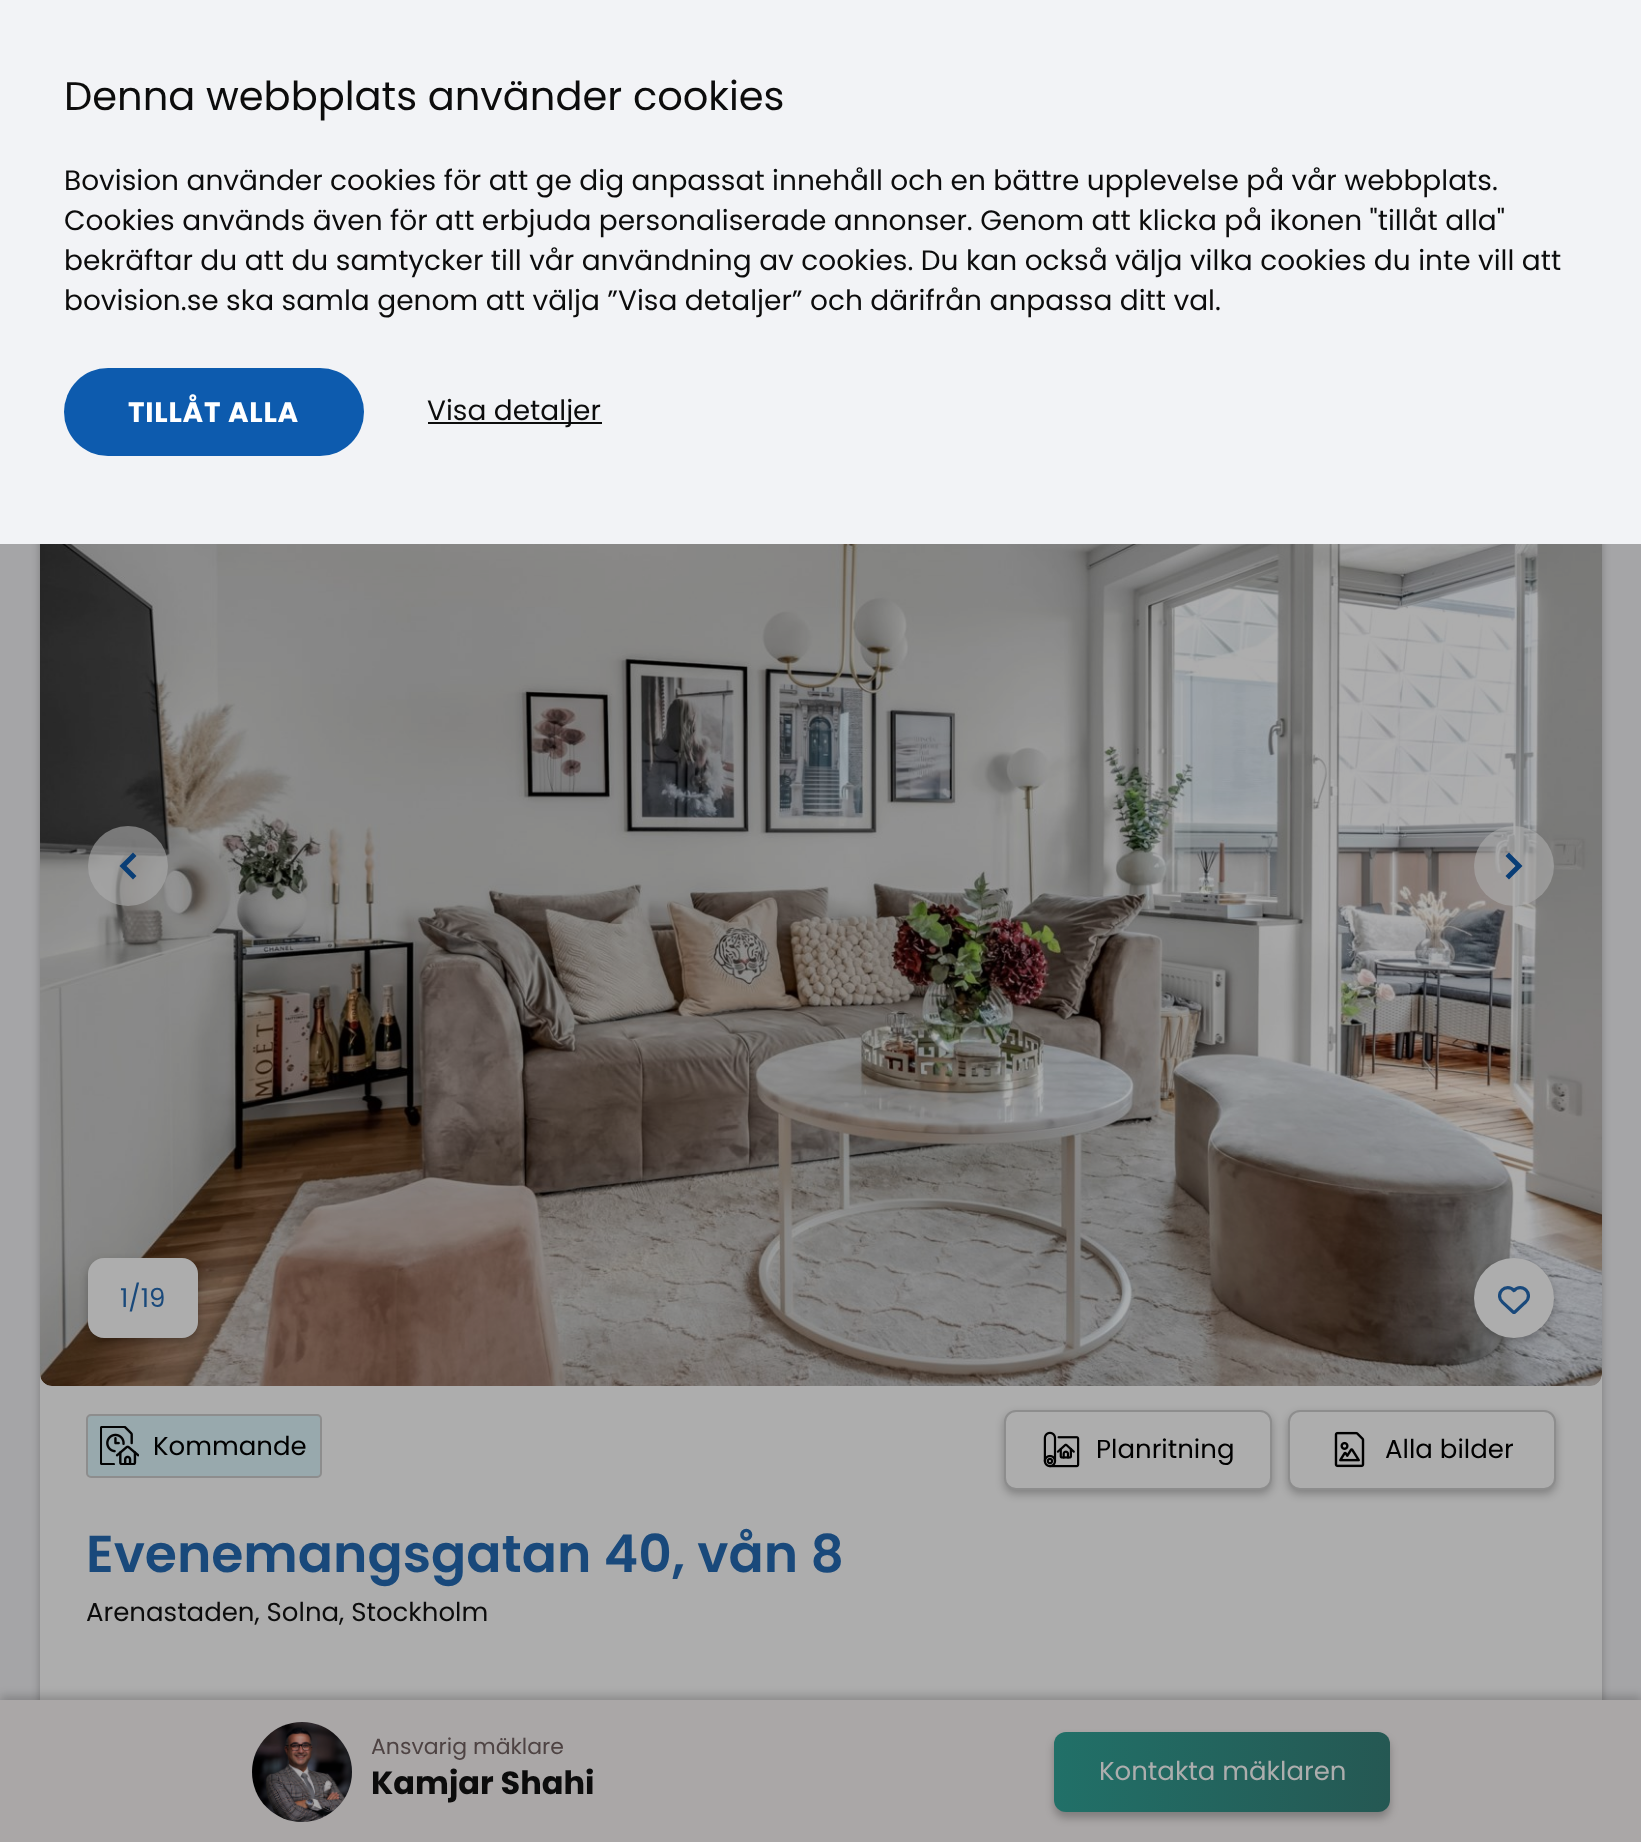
async function draw(canvas) {
	canvas.width = 1641;
	canvas.height = 1842;
	const c = canvas.getContext('2d');
	c.miterLimit = 4;
	c.fontKerning = 'normal';
	async function loadImage(src) {
		const img = new Image();
		img.src = src;
		await img.decode();
		return img;
	}
	let gradient;

	c.fillStyle = '#a5a5a7';
	c.fillRect(0, 0, 1641, 1842);
	c.fillStyle = '#00000040';
	c.filter = 'blur(4px)';
	c.beginPath();
	c.roundRect(40, 348, 1562, 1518, 12);
	c.fill();
	c.filter = 'none';
	c.fillStyle = '#f2f3f6';
	c.fillRect(0, 0, 1641, 544);
	c.font = '40px Poppins';
	c.fillStyle = '#0c0c0c';
	c.fillText('Denna webbplats använder cookies', 64, 110);
	c.font = '28px Poppins';
	for (const [text, x, y] of [
		['Bovision använder cookies för att ge dig anpassat innehåll och en bättre upplevelse på vår webbplats.', 64, 190],
		['Cookies används även för att erbjuda personaliserade annonser. Genom att klicka på ikonen "tillåt alla"', 64, 230],
		['bekräftar du att du samtycker till vår användning av cookies. Du kan också välja vilka cookies du inte vill att', 64, 270],
		['bovision.se ska samla genom att välja ”Visa detaljer” och därifrån anpassa ditt val.', 64, 310],
	]) {
		c.fillText(text, x, y);
	}
	c.fillStyle = '#0d5bae';
	c.beginPath();
	c.roundRect(64, 368, 300, 88, 44);
	c.fill();
	c.letterSpacing = '0.75px';
	c.font = 'bold 28px Poppins';
	c.fillStyle = '#fff';
	c.fillText('TILLÅT ALLA', 128, 422);
	c.fillStyle = '#0d0d0d';
	c.fillRect(428, 422, 174, 2);
	c.letterSpacing = '0px';
	c.font = '28px Poppins';
	c.fillStyle = '#0c0c0c';
	c.fillText('Visa detaljer', 427, 420);
	c.fillStyle = '#adadad';
	c.fillRect(40, 1374, 1562, 326);
	c.drawImage(await loadImage('img1.png'), 40, 544, 1562, 842);
	c.fillStyle = '#adadad99';
	c.beginPath();
	c.arc(128, 866, 40, 0, 2 * Math.PI);
	c.fill();
	c.drawImage(await loadImage('img2.png'), 119, 852, 18, 28);
	c.beginPath();
	c.arc(1514, 866, 40, 0, 2 * Math.PI);
	c.fill();
	c.drawImage(await loadImage('img3.png'), 1505, 852, 18, 28);
	c.fillStyle = '#00000040';
	c.filter = 'blur(4px)';
	c.beginPath();
	c.roundRect(88, 1262, 110, 80, 16);
	c.fill();
	c.filter = 'none';
	c.fillStyle = '#adadad';
	c.beginPath();
	c.roundRect(88, 1258, 110, 80, 16);
	c.fill();
	c.font = '26px Poppins';
	c.fillStyle = '#19497b';
	c.fillText('1/19', 120, 1307);
	c.fillStyle = '#00000040';
	c.filter = 'blur(4px)';
	c.beginPath();
	c.roundRect(1474, 1262, 80, 80, 40);
	c.fill();
	c.filter = 'none';
	c.fillStyle = '#adadad';
	c.beginPath();
	c.arc(1514, 1298, 40, 0, 2 * Math.PI);
	c.fill();
	c.drawImage(await loadImage('img4.png'), 1498, 1286, 32, 28);
	c.fillStyle = '#98a9ad';
	c.beginPath();
	c.roundRect(87, 1415, 234, 62, 4);
	c.fill();
	c.strokeStyle = '#8d8d8d';
	c.lineWidth = 2;
	c.stroke();
	c.drawImage(await loadImage('img5.png'), 100, 1426, 39, 39);
	c.fillStyle = '#000';
	c.fillText('Kommande', 153, 1455);
	c.fillStyle = '#00000040';
	c.filter = 'blur(4px)';
	c.beginPath();
	c.roundRect(1004, 1414, 268, 80, 12);
	c.fill();
	c.filter = 'none';
	c.fillStyle = '#adadad';
	c.beginPath();
	c.roundRect(1005, 1411, 266, 78, 11);
	c.fill();
	c.stroke();
	c.drawImage(await loadImage('img6.png'), 1043, 1431, 37, 37);
	c.fillStyle = '#000';
	c.fillText('Planritning', 1096, 1458);
	c.fillStyle = '#00000040';
	c.filter = 'blur(4px)';
	c.beginPath();
	c.roundRect(1288, 1414, 268, 80, 12);
	c.fill();
	c.filter = 'none';
	c.fillStyle = '#adadad';
	c.beginPath();
	c.roundRect(1289, 1411, 266, 78, 11);
	c.fill();
	c.stroke();
	c.drawImage(await loadImage('img7.png'), 1334, 1431, 31, 37);
	c.fillStyle = '#000';
	c.fillText('Alla bilder', 1385, 1458);
	c.font = '600 52px Poppins';
	c.fillStyle = '#19497b';
	c.fillText('Evenemangsgatan 40, vån 8', 86, 1572);
	c.font = '26px Poppins';
	c.fillStyle = '#0c0c0c';
	c.fillText('Arenastaden, Solna, Stockholm', 86, 1621);
	c.fillStyle = '#00000033';
	c.filter = 'blur(5px)';
	c.beginPath();
	c.rect(0, 1696, 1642, 142);
	c.fill();
	c.filter = 'none';
	c.fillStyle = '#aaa7a7';
	c.fillRect(0, 1700, 1641, 142);
	c.drawImage(await loadImage('img8.png'), 252, 1722, 100, 100);
	c.font = '22px Poppins';
	c.fillStyle = '#4e4343';
	c.fillText('Ansvarig mäklare', 371, 1754);
	c.font = 'bold 32px Poppins';
	c.fillStyle = '#0c0c0c';
	c.fillText('Kamjar Shahi', 371, 1794);
	c.fillStyle = '#00000040';
	c.filter = 'blur(4px)';
	c.beginPath();
	c.roundRect(1054, 1738, 336, 80, 12);
	c.fill();
	c.filter = 'none';
	gradient = c.createLinearGradient(1390, 1772, 1054, 1772);
	gradient.addColorStop(0, '#255853');
	gradient.addColorStop(1, '#217068');
	c.fillStyle = gradient;
	c.beginPath();
	c.roundRect(1054, 1732, 336, 80, 12);
	c.fill();
	c.font = '26px Poppins';
	c.fillStyle = '#adadad';
	c.fillText('Kontakta mäklaren', 1099, 1780);
}

draw(document.querySelector('canvas'));
